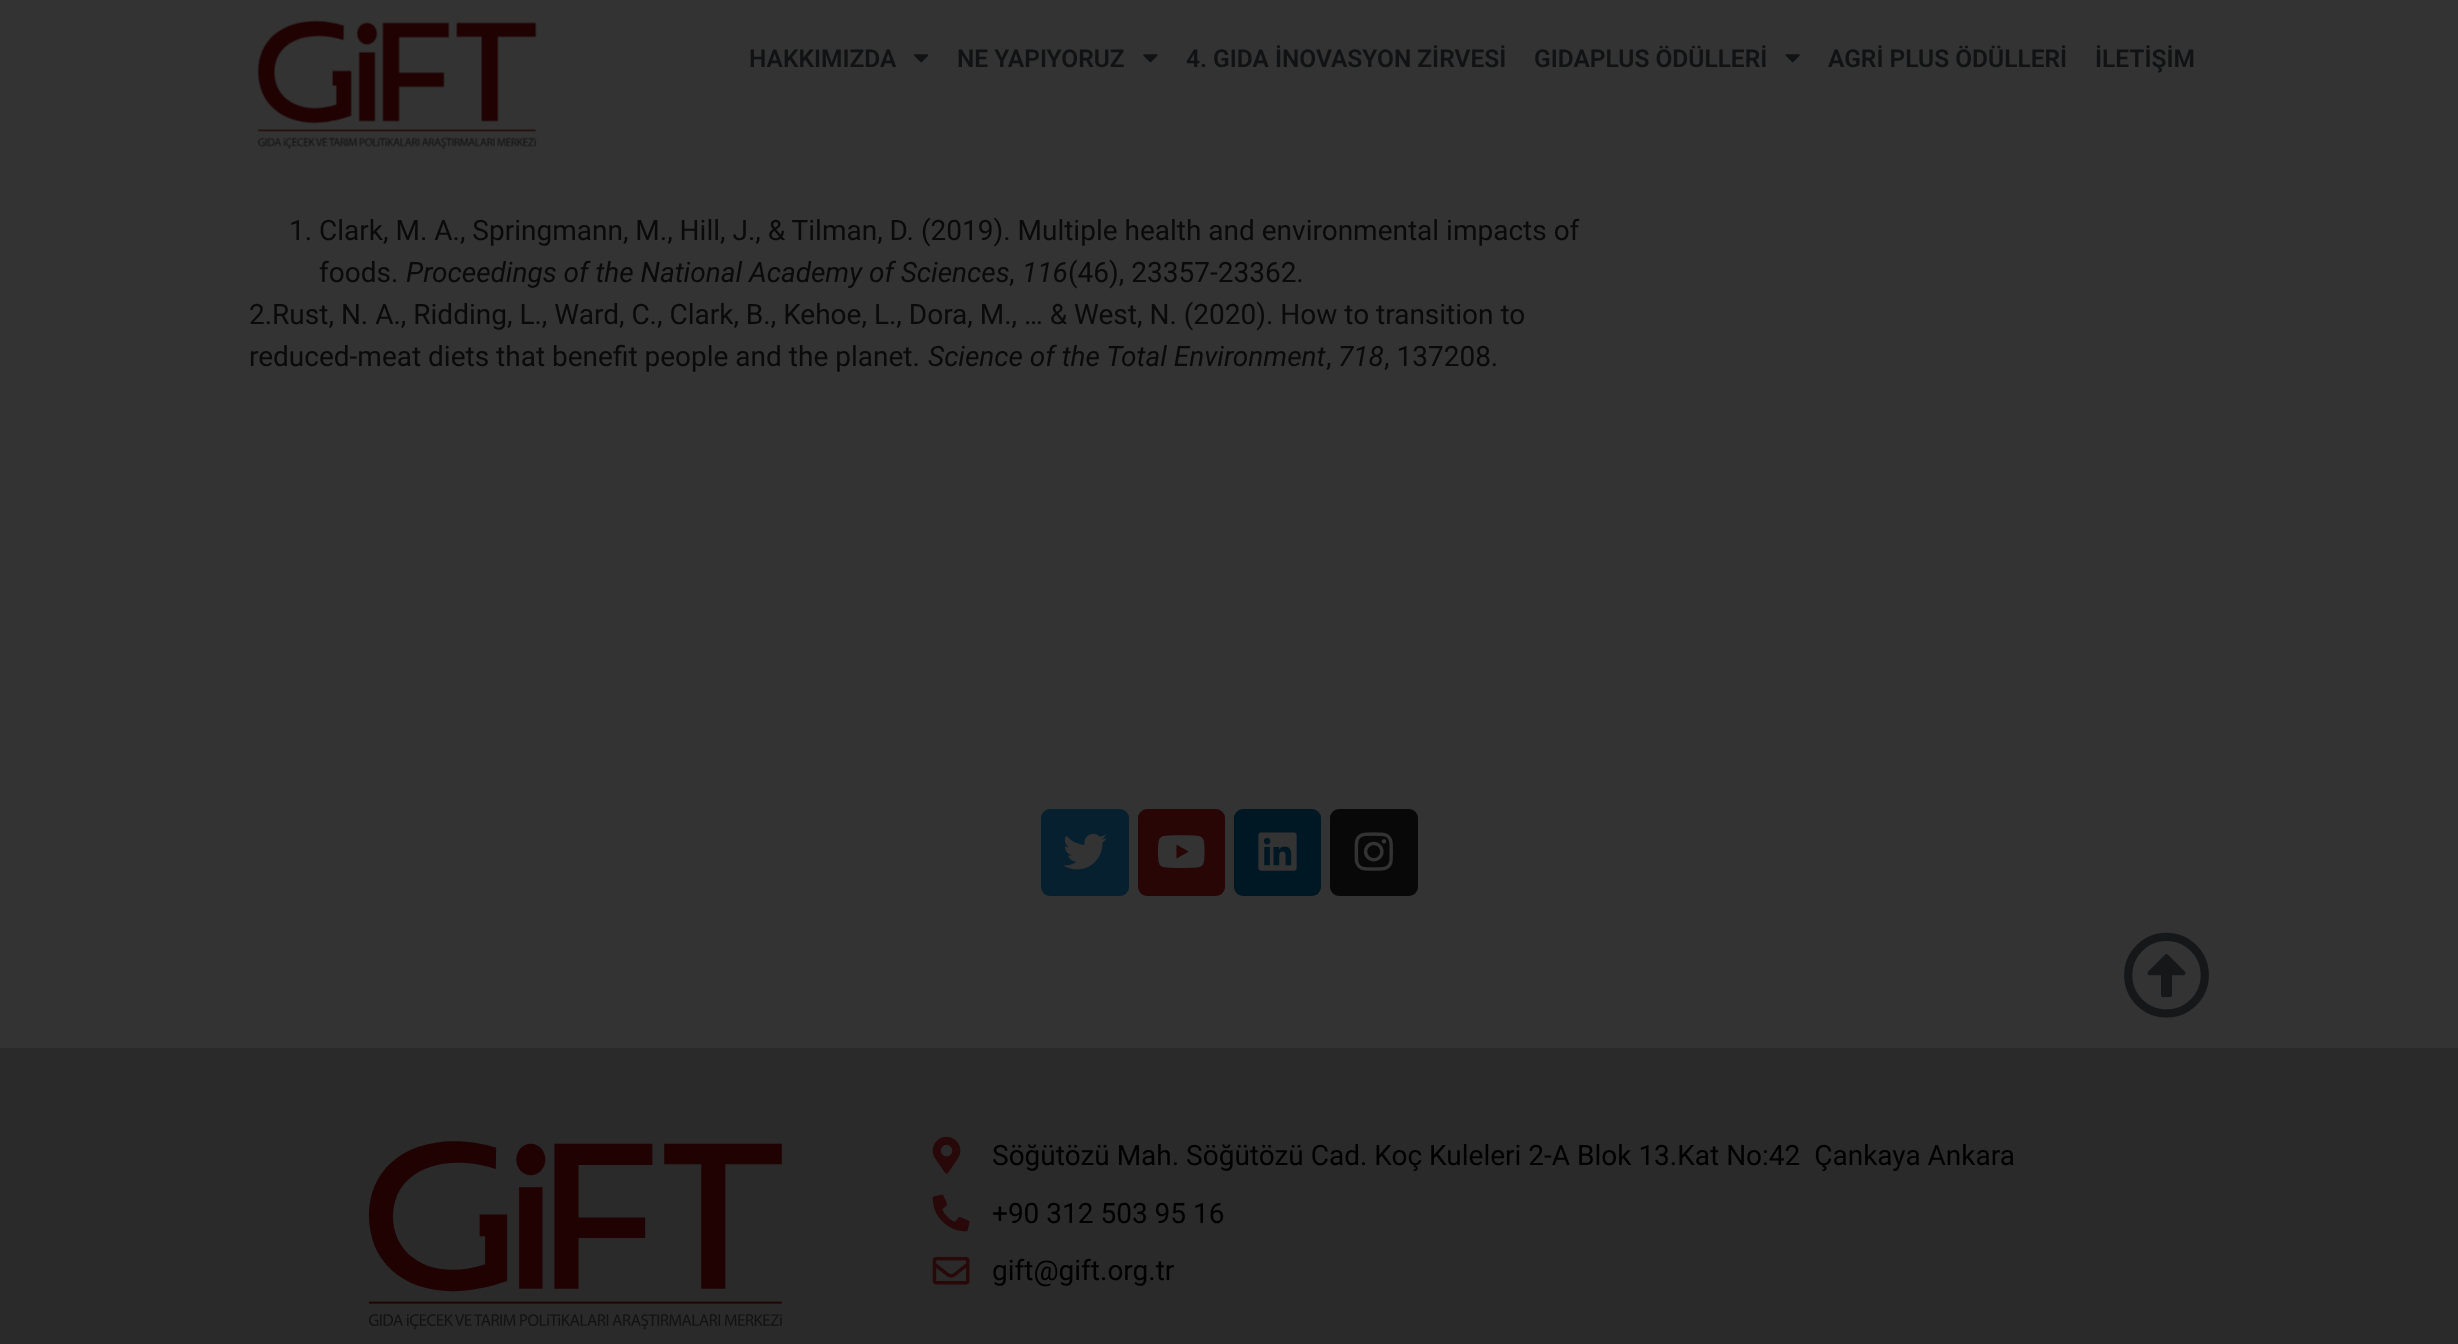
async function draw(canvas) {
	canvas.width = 2458;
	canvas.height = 1344;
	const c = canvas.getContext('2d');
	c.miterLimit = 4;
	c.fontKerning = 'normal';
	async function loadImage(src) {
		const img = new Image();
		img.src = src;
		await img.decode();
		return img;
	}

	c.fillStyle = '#333';
	c.fillRect(0, 0, 2458, 1344);
	c.drawImage(await loadImage('img1.png'), 257, 20, 280, 129);
	c.font = '600 24.5px Roboto';
	c.fillStyle = '#111213';
	c.fillText('HAKKIMIZDA', 749, 67);
	c.drawImage(await loadImage('img2.png'), 914, 54, 15, 9);
	c.fillText('NE YAPIYORUZ', 957, 67);
	c.drawImage(await loadImage('img3.png'), 1143, 54, 15, 9);
	c.fillText('4. GIDA İNOVASYON ZİRVESİ', 1186, 67);
	c.fillText('GIDAPLUS ÖDÜLLERİ', 1534, 67);
	c.drawImage(await loadImage('img4.png'), 1785, 54, 15, 9);
	c.fillText('AGRİ PLUS ÖDÜLLERİ', 1828, 67);
	c.fillText('İLETİŞİM', 2095, 67);
	c.font = '28px Roboto';
	c.fillStyle = '#0a0a0a';
	c.fillText('1. Clark, M. A., Springmann, M., Hill, J., & Tilman, D. (2019). Multiple health and environmental impacts of', 289, 240);
	c.fillText('foods.', 319, 282);
	c.font = 'italic 28px Roboto';
	c.fillText('Proceedings of the National Academy of Sciences', 406, 282);
	c.font = '28px Roboto';
	c.fillText(',', 1009, 282);
	c.font = 'italic 28px Roboto';
	c.fillText('116', 1022, 282);
	c.font = '28px Roboto';
	for (const [text, x, y] of [
		['(46), 23357-23362.', 1068, 282],
		['2.Rust, N. A., Ridding, L., Ward, C., Clark, B., Kehoe, L., Dora, M., … & West, N. (2020). How to transition to', 249, 324],
		['reduced-meat diets that benefit people and the planet.', 249, 366],
	]) {
		c.fillText(text, x, y);
	}
	c.font = 'italic 28px Roboto';
	c.fillText('Science of the Total Environment', 928, 366);
	c.font = '28px Roboto';
	c.fillText(',', 1326, 366);
	c.font = 'italic 28px Roboto';
	c.fillText('718', 1338, 366);
	c.font = '28px Roboto';
	c.fillText(', 137208.', 1384, 366);
	c.fillStyle = '#062030';
	c.beginPath();
	c.roundRect(1041, 809, 88, 87, 9);
	c.fill();
	c.drawImage(await loadImage('img5.png'), 1063, 833, 44, 37);
	c.fillStyle = '#290606';
	c.beginPath();
	c.roundRect(1138, 809, 87, 87, 9);
	c.fill();
	c.drawImage(await loadImage('img6.png'), 1157, 835, 48, 33);
	c.fillStyle = '#001824';
	c.beginPath();
	c.roundRect(1234, 809, 87, 87, 9);
	c.fill();
	c.drawImage(await loadImage('img7.png'), 1258, 832, 39, 39);
	c.fillStyle = '#080808';
	c.beginPath();
	c.roundRect(1330, 809, 88, 87, 9);
	c.fill();
	c.drawImage(await loadImage('img8.png'), 1354, 832, 39, 39);
	c.drawImage(await loadImage('img9.png'), 2124, 932, 85, 86);
	c.fillStyle = '#2a2a2a';
	c.fillRect(0, 1048, 2458, 296);
	c.drawImage(await loadImage('img10.png'), 368, 1141, 414, 189);
	c.drawImage(await loadImage('img11.png'), 932, 1136, 29, 38);
	c.fillStyle = '#000';
	c.fillText('Söğütözü Mah. Söğütözü Cad. Koç Kuleleri 2-A Blok 13.Kat No:42  Çankaya Ankara', 992, 1165);
	c.drawImage(await loadImage('img12.png'), 932, 1194, 38, 38);
	c.fillText('+90 312 503 95 16', 992, 1223);
	c.drawImage(await loadImage('img13.png'), 932, 1256, 38, 29);
	c.fillText('gift@gift.org.tr', 992, 1280);
}

draw(document.querySelector('canvas'));
